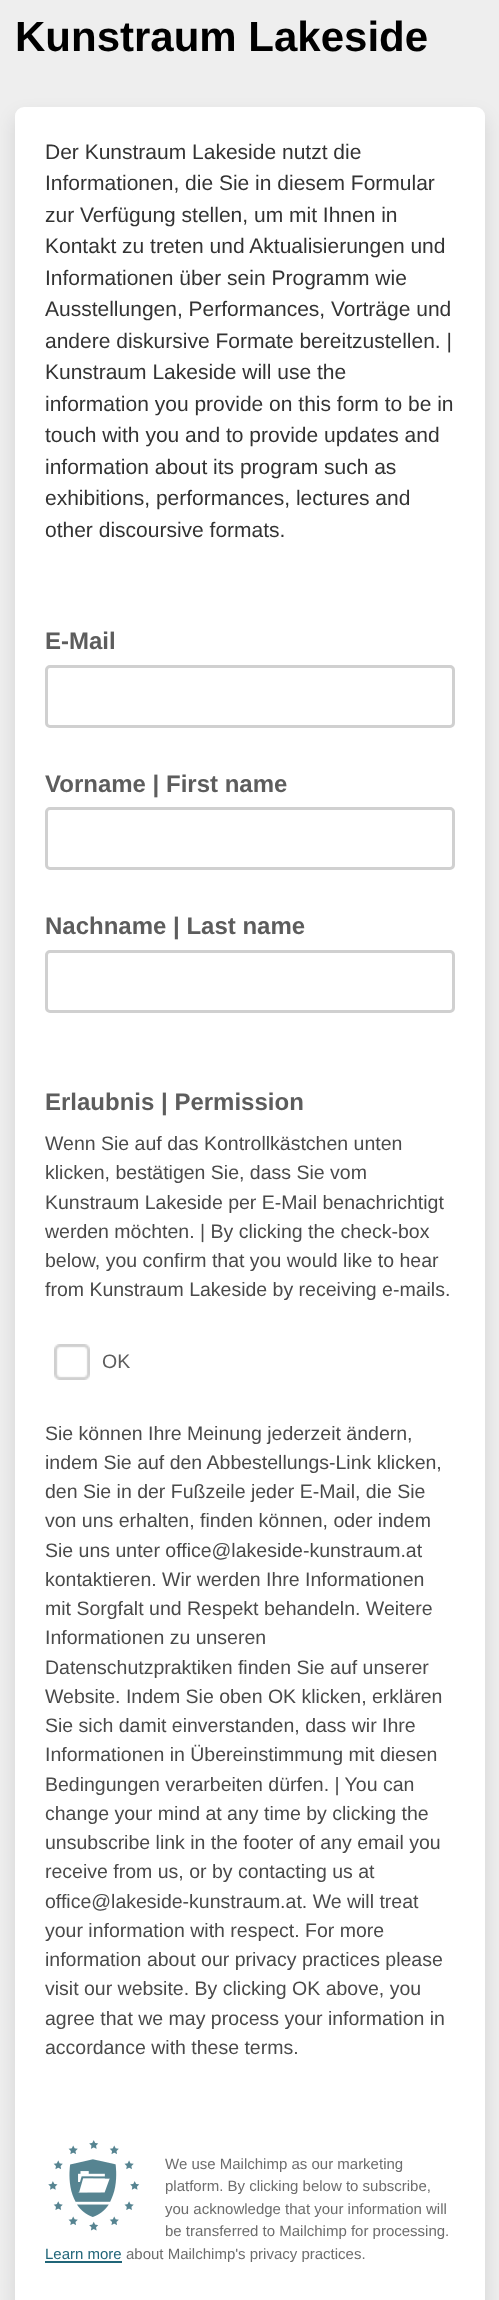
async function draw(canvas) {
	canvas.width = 499;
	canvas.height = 2300;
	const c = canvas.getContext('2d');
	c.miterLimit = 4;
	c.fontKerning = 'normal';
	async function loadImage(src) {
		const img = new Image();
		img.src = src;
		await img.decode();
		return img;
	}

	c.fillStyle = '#eee';
	c.fillRect(0, 0, 499, 2300);
	c.font = 'bold 42px Liberation Sans';
	c.fillStyle = '#000';
	c.fillText('Kunstraum Lakeside', 15, 51);
	c.fillStyle = '#0d12161f';
	c.filter = 'blur(9px)';
	c.beginPath();
	c.roundRect(15, 116, 470, 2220, 9);
	c.fill();
	c.filter = 'none';
	c.fillStyle = '#fff';
	c.beginPath();
	c.roundRect(15, 107, 470, 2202, 9);
	c.fill();
	c.font = '21px Liberation Sans';
	c.fillStyle = '#333';
	for (const [text, x, y] of [
		['Der Kunstraum Lakeside nutzt die', 45, 159],
		['Informationen, die Sie in diesem Formular', 45, 190],
		['zur Verfügung stellen, um mit Ihnen in', 45, 222],
		['Kontakt zu treten und Aktualisierungen und', 45, 253],
		['Informationen über sein Programm wie', 45, 285],
		['Ausstellungen, Performances, Vorträge und', 45, 316],
		['andere diskursive Formate bereitzustellen. |', 45, 348],
		['Kunstraum Lakeside will use the', 45, 379],
		['information you provide on this form to be in', 45, 411],
		['touch with you and to provide updates and', 45, 442],
		['information about its program such as', 45, 474],
		['exhibitions, performances, lectures and', 45, 505],
		['other discoursive formats.', 45, 537],
	]) {
		c.fillText(text, x, y);
	}
	c.font = 'bold 24px Liberation Sans';
	c.fillStyle = '#5d5d5d';
	c.fillText('E-Mail', 45, 649);
	c.beginPath();
	c.roundRect(46.5, 666.5, 407, 60, 3.5);
	c.strokeStyle = '#d0d0d0';
	c.lineWidth = 3;
	c.stroke();
	c.fillText('Vorname | First name', 45, 792);
	c.beginPath();
	c.roundRect(46.5, 808.5, 407, 60, 3.5);
	c.stroke();
	c.fillText('Nachname | Last name', 45, 934);
	c.beginPath();
	c.roundRect(46.5, 951.5, 407, 60, 3.5);
	c.stroke();
	c.fillText('Erlaubnis | Permission', 45, 1110);
	c.font = '19.5px Liberation Sans';
	c.fillStyle = '#4a4a4a';
	for (const [text, x, y] of [
		['Wenn Sie auf das Kontrollkästchen unten', 45, 1150],
		['klicken, bestätigen Sie, dass Sie vom', 45, 1179],
		['Kunstraum Lakeside per E-Mail benachrichtigt', 45, 1209],
		['werden möchten. | By clicking the check-box', 45, 1238],
		['below, you confirm that you would like to hear', 45, 1267],
		['from Kunstraum Lakeside by receiving e-mails.', 45, 1296],
	]) {
		c.fillText(text, x, y);
	}
	c.drawImage(await loadImage('img1.png'), 54, 1344, 36, 36);
	c.fillStyle = '#5d5d5d';
	c.fillText('OK', 102, 1368);
	c.fillStyle = '#4a4a4a';
	for (const [text, x, y] of [
		['Sie können Ihre Meinung jederzeit ändern,', 45, 1440],
		['indem Sie auf den Abbestellungs-Link klicken,', 45, 1469],
		['den Sie in der Fußzeile jeder E-Mail, die Sie', 45, 1498],
		['von uns erhalten, finden können, oder indem', 45, 1527],
		['Sie uns unter office@lakeside-kunstraum.at', 45, 1557],
		['kontaktieren. Wir werden Ihre Informationen', 45, 1586],
		['mit Sorgfalt und Respekt behandeln. Weitere', 45, 1615],
		['Informationen zu unseren', 45, 1644],
		['Datenschutzpraktiken finden Sie auf unserer', 45, 1674],
		['Website. Indem Sie oben OK klicken, erklären', 45, 1703],
		['Sie sich damit einverstanden, dass wir Ihre', 45, 1732],
		['Informationen in Übereinstimmung mit diesen', 45, 1761],
		['Bedingungen verarbeiten dürfen. | You can', 45, 1791],
		['change your mind at any time by clicking the', 45, 1820],
		['unsubscribe link in the footer of any email you', 45, 1849],
		['receive from us, or by contacting us at', 45, 1878],
		['office@lakeside-kunstraum.at. We will treat', 45, 1908],
		['your information with respect. For more', 45, 1937],
		['information about our privacy practices please', 45, 1966],
		['visit our website. By clicking OK above, you', 45, 1995],
		['agree that we may process your information in', 45, 2025],
		['accordance with these terms.', 45, 2054],
	]) {
		c.fillText(text, x, y);
	}
	c.drawImage(await loadImage('img2.png'), 48, 2140, 92, 91);
	c.font = '15px Liberation Sans';
	c.fillStyle = '#6d6d6d';
	for (const [text, x, y] of [
		['We use Mailchimp as our marketing', 165, 2169],
		['platform. By clicking below to subscribe,', 165, 2191],
		['you acknowledge that your information will', 165, 2214],
		['be transferred to Mailchimp for processing.', 165, 2236],
	]) {
		c.fillText(text, x, y);
	}
	c.fillStyle = '#206578';
	c.fillText('Learn more', 45, 2259);
	c.fillRect(45, 2261, 77, 2);
	c.fillStyle = '#6d6d6d';
	c.fillText('about Mailchimp\'s privacy practices.', 126, 2259);
}

draw(document.querySelector('canvas'));
